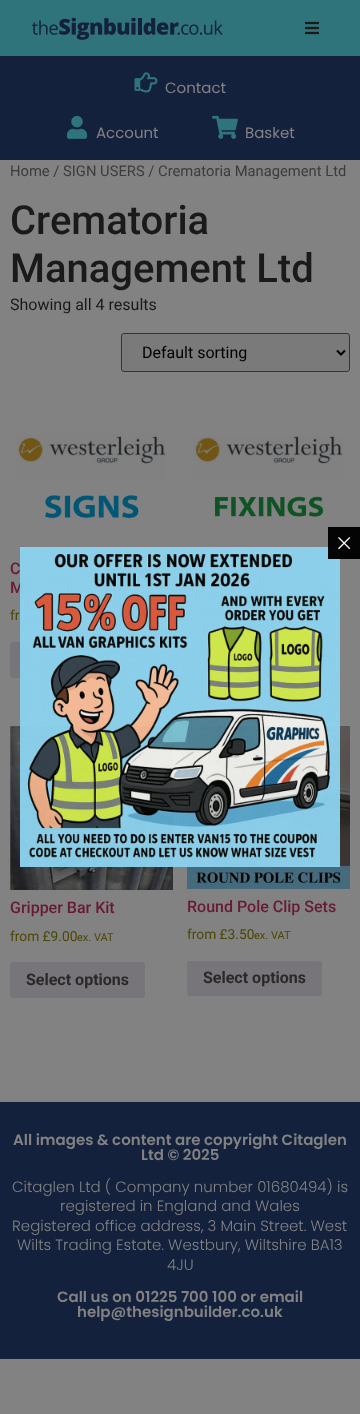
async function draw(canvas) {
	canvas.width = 360;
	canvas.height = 1414;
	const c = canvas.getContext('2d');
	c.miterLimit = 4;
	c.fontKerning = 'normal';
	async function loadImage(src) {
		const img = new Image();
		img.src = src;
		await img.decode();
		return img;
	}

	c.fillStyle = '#828282';
	c.fillRect(0, 0, 360, 1414);
	c.fillStyle = '#2f737b';
	c.fillRect(0, 0, 360, 56);
	c.drawImage(await loadImage('img1.png'), 31, 17, 192, 23);
	c.drawImage(await loadImage('img2.png'), 305, 21, 14, 14);
	c.fillStyle = '#14213c';
	c.fillRect(0, 56, 360, 104);
	c.drawImage(await loadImage('img3.png'), 134, 72, 24, 21);
	c.font = '15px Poppins';
	c.fillStyle = '#828282';
	c.fillText('Contact', 165, 93);
	c.drawImage(await loadImage('img4.png'), 66, 115, 22, 24);
	c.fillText('Account', 96, 138);
	c.drawImage(await loadImage('img5.png'), 212, 115, 26, 24);
	c.fillText('Basket', 245, 138);
	c.font = '14.75px Roboto';
	c.fillStyle = '#3c3c3c';
	c.fillText('Home / SIGN USERS / Crematoria Management Ltd', 10, 176);
	c.font = '500 40px Roboto';
	c.fillStyle = '#1a1a1a';
	c.fillText('Crematoria', 10, 234);
	c.fillText('Management Ltd', 10, 282);
	c.font = '16px Roboto';
	c.fillText('Showing all 4 results', 10, 310);
	c.fillStyle = '#7a7a7a';
	c.beginPath();
	c.roundRect(121.5, 333.5, 228, 38, 2.5);
	c.fill();
	c.strokeStyle = '#343434';
	c.stroke();
	c.beginPath();
	c.moveTo(337, 350.5);
	c.lineTo(341, 354.5);
	c.lineTo(345, 350.5);
	c.strokeStyle = '#000';
	c.lineWidth = 2;
	c.stroke();
	c.fillStyle = '#000';
	c.fillText('Default sorting', 142, 358);
	c.drawImage(await loadImage('img6.png'), 193, 435, 152, 82);
	c.drawImage(await loadImage('img7.png'), 15, 434, 151, 85);
	c.font = '500 16px Roboto';
	c.fillStyle = '#681a34';
	c.fillText('C', 10, 574);
	c.fillText('M', 10, 593);
	c.font = '13.75px Roboto';
	c.fillStyle = '#4c4805';
	c.fillText('fr', 10, 620);
	c.fillStyle = '#777579';
	c.beginPath();
	c.roundRect(10, 642, 135, 36, 3);
	c.fill();
	c.drawImage(await loadImage('img8.png'), 10, 726, 163, 164);
	c.font = '500 16px Roboto';
	c.fillStyle = '#681a34';
	c.fillText('Gripper Bar Kit', 10, 913);
	c.font = '13.75px Roboto';
	c.fillStyle = '#4c4805';
	c.fillText('from £9.00', 10, 941);
	c.font = '11px Roboto';
	c.fillText('ex. VAT', 77, 941);
	c.fillStyle = '#777579';
	c.beginPath();
	c.roundRect(10, 962, 135, 36, 3);
	c.fill();
	c.font = 'bold 16px Roboto';
	c.fillStyle = '#292929';
	c.fillText('Select options', 26, 985);
	c.drawImage(await loadImage('img9.png'), 187, 726, 163, 163);
	c.font = '500 16px Roboto';
	c.fillStyle = '#681a34';
	c.fillText('Round Pole Clip Sets', 187, 912);
	c.font = '13.75px Roboto';
	c.fillStyle = '#4c4805';
	c.fillText('from £3.50', 187, 939);
	c.font = '11px Roboto';
	c.fillText('ex. VAT', 254, 939);
	c.fillStyle = '#777579';
	c.beginPath();
	c.roundRect(187, 961, 135, 35, 3);
	c.fill();
	c.font = 'bold 16px Roboto';
	c.fillStyle = '#292929';
	c.fillText('Select options', 203, 983);
	c.drawImage(await loadImage('img11.png'), 20, 547, 320, 320);
	c.fillStyle = '#000000f7';
	c.fillRect(328, 527, 32, 32);
	c.drawImage(await loadImage('img10.png'), 338, 537, 13, 13);
	c.fillStyle = '#14213c';
	c.fillRect(0, 1102, 360, 257);
	c.font = '600 15px Poppins';
	c.fillStyle = '#828282';
	c.fillText('All images & content are copyright Citaglen', 13, 1145);
	c.fillText('Ltd © 2025', 141, 1160);
	c.font = '300 15px Poppins';
	for (const [text, x, y] of [
		['Citaglen Ltd ( Company number 01680494) is', 12, 1192],
		['registered in England and Wales', 60, 1211],
		['Registered office address, 3 Main Street. West', 12, 1231],
		['Wilts Trading Estate. Westbury, Wiltshire BA13', 17, 1250],
		['4JU', 167, 1270],
	]) {
		c.fillText(text, x, y);
	}
	c.font = '600 15px Poppins';
	c.fillText('Call us on 01225 700 100 or email', 57, 1302);
	c.fillText('help@thesignbuilder.co.uk', 77, 1317);
}

draw(document.querySelector('canvas'));
